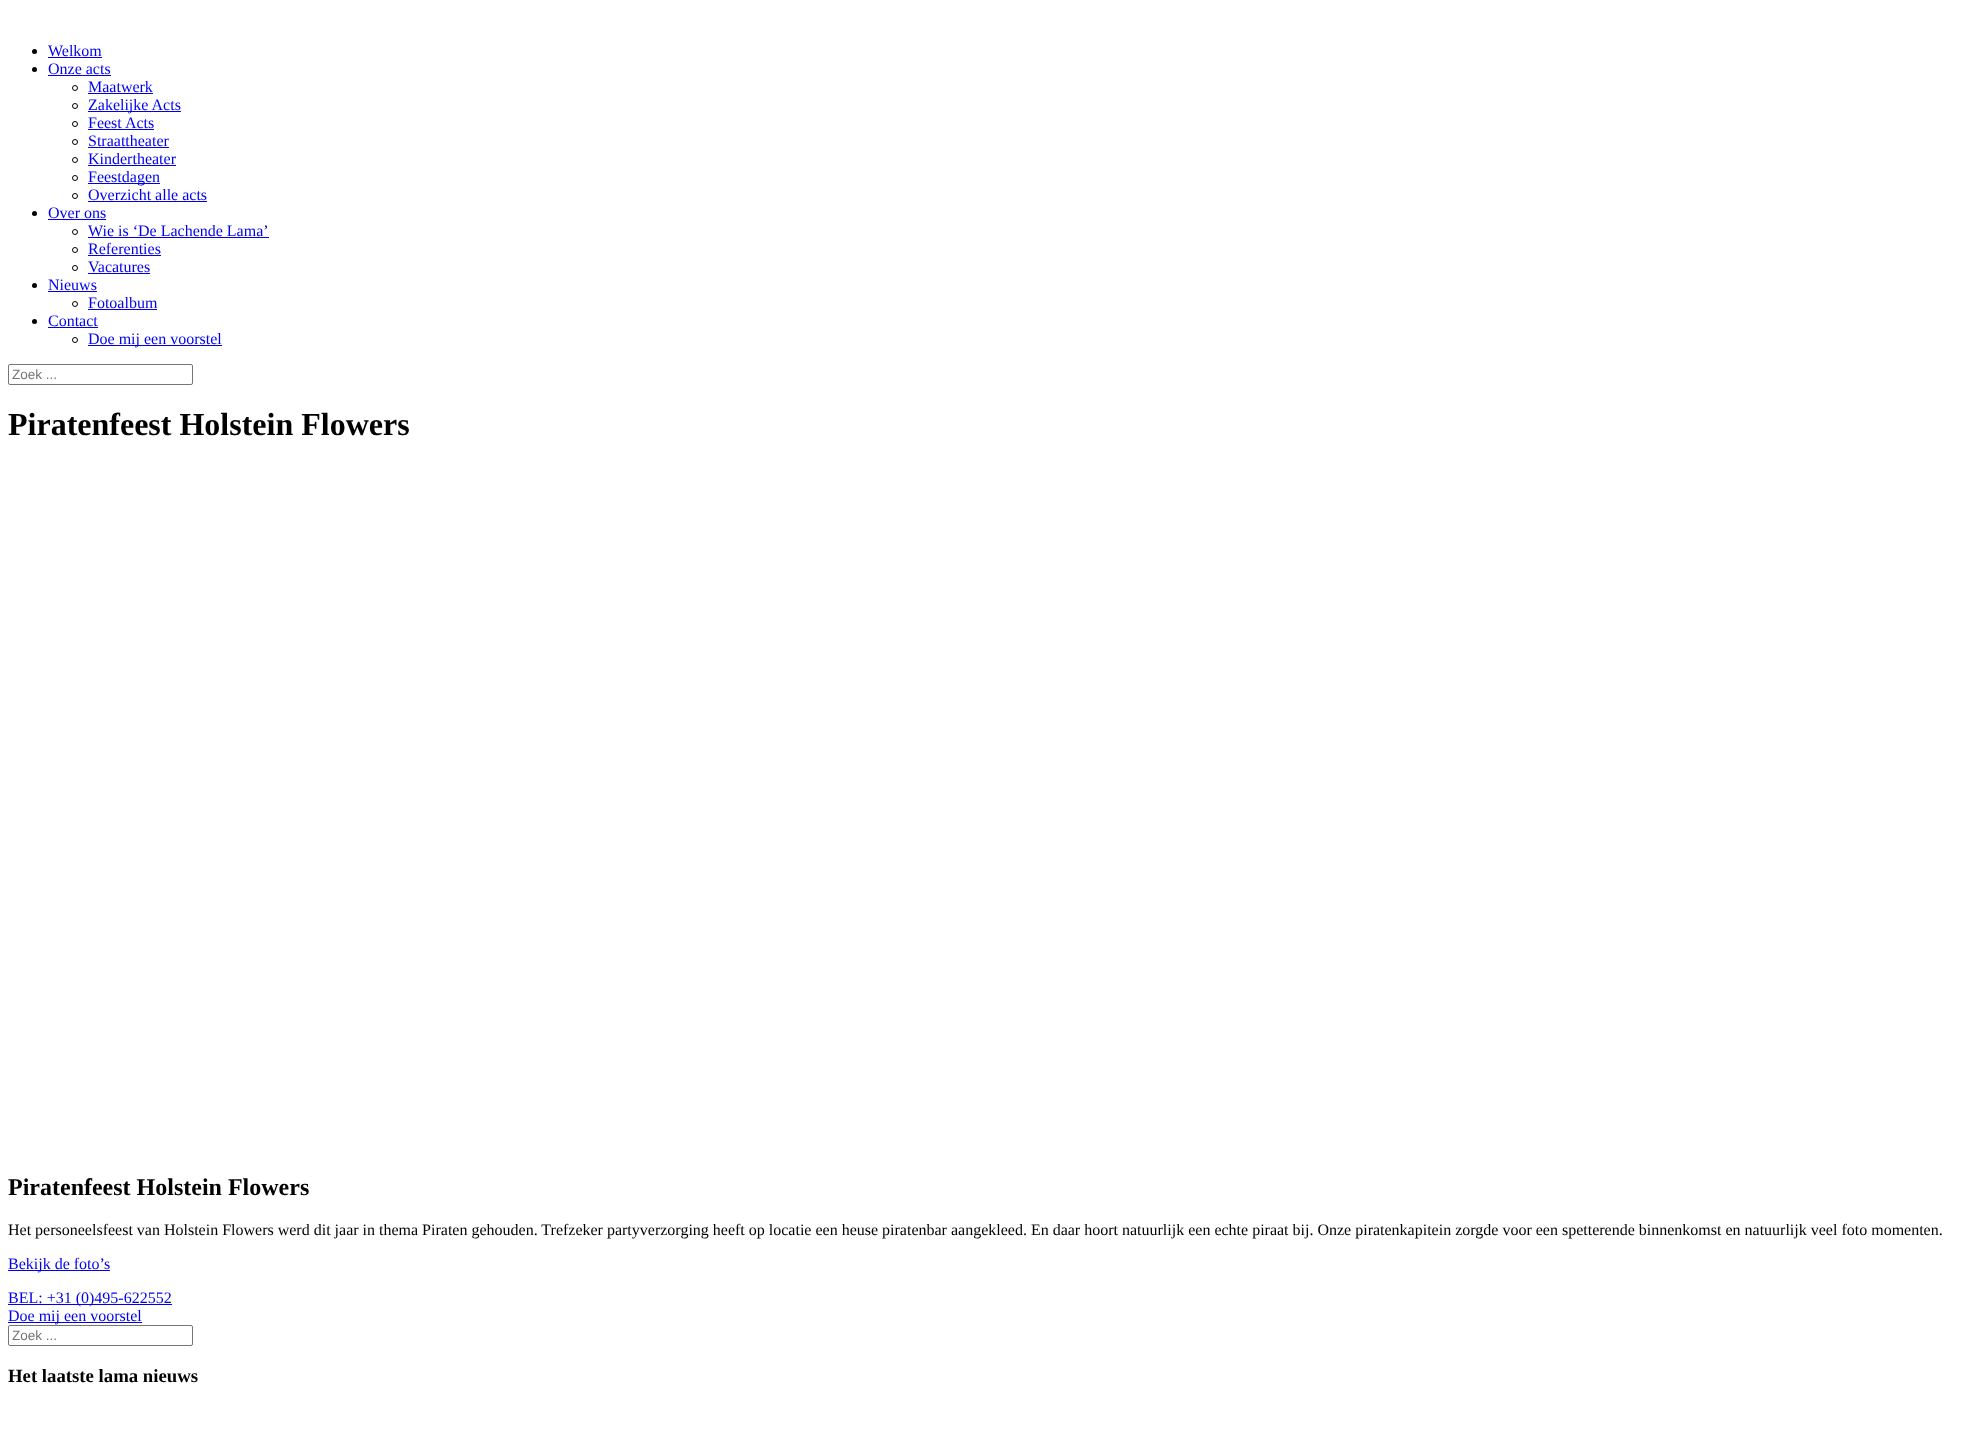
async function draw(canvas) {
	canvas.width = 1966;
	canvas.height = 1437;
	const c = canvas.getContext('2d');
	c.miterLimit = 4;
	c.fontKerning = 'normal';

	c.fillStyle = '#fff';
	c.fillRect(0, 0, 1966, 1437);
	c.fillStyle = '#000';
	c.beginPath();
	c.arc(34.5, 51.5, 2.5, 0, 2 * Math.PI);
	c.fill();
	c.font = '16px Liberation Serif';
	c.fillStyle = '#00e';
	c.fillText('Welkom', 48, 56);
	c.fillRect(48, 57, 54, 1);
	c.fillStyle = '#000';
	c.beginPath();
	c.arc(34.5, 69.5, 2.5, 0, 2 * Math.PI);
	c.fill();
	c.fillStyle = '#00e';
	c.fillText('Onze acts', 48, 74);
	c.fillRect(48, 75, 63, 1);
	c.beginPath();
	c.arc(75, 88, 2.5, 0, 2 * Math.PI);
	c.strokeStyle = '#000';
	c.stroke();
	c.fillText('Maatwerk', 88, 92);
	c.fillRect(88, 93, 65, 1);
	c.beginPath();
	c.arc(75, 106, 2.5, 0, 2 * Math.PI);
	c.stroke();
	c.fillRect(88, 111, 93, 1);
	c.fillText('Zakelijke Acts', 88, 110);
	c.beginPath();
	c.arc(75, 124, 2.5, 0, 2 * Math.PI);
	c.stroke();
	c.fillText('Feest Acts', 88, 128);
	c.fillRect(88, 129, 66, 1);
	c.beginPath();
	c.arc(75, 142, 2.5, 0, 2 * Math.PI);
	c.stroke();
	c.fillText('Straattheater', 88, 146);
	c.fillRect(88, 147, 81, 1);
	c.beginPath();
	c.arc(75, 160, 2.5, 0, 2 * Math.PI);
	c.stroke();
	c.fillText('Kindertheater', 88, 164);
	c.fillRect(88, 165, 88, 1);
	c.beginPath();
	c.arc(75, 178, 2.5, 0, 2 * Math.PI);
	c.stroke();
	c.fillRect(88, 183, 72, 1);
	c.fillText('Feestdagen', 88, 182);
	c.beginPath();
	c.arc(75, 196, 2.5, 0, 2 * Math.PI);
	c.stroke();
	c.fillText('Overzicht alle acts', 88, 200);
	c.fillRect(88, 201, 119, 1);
	c.fillStyle = '#000';
	c.beginPath();
	c.arc(34.5, 213.5, 2.5, 0, 2 * Math.PI);
	c.fill();
	c.fillStyle = '#00e';
	c.fillText('Over ons', 48, 218);
	c.fillRect(48, 219, 58, 1);
	c.beginPath();
	c.arc(75, 232, 2.5, 0, 2 * Math.PI);
	c.stroke();
	c.fillText('Wie is ‘De Lachende Lama’', 88, 236);
	c.fillRect(88, 237, 181, 1);
	c.beginPath();
	c.arc(75, 250, 2.5, 0, 2 * Math.PI);
	c.stroke();
	c.fillText('Referenties', 88, 254);
	c.fillRect(88, 255, 73, 1);
	c.beginPath();
	c.arc(75, 268, 2.5, 0, 2 * Math.PI);
	c.stroke();
	c.fillText('Vacatures', 88, 272);
	c.fillRect(88, 273, 62, 1);
	c.fillStyle = '#000';
	c.beginPath();
	c.arc(34.5, 285.5, 2.5, 0, 2 * Math.PI);
	c.fill();
	c.fillStyle = '#00e';
	c.fillText('Nieuws', 48, 290);
	c.fillRect(48, 291, 49, 1);
	c.beginPath();
	c.arc(75, 304, 2.5, 0, 2 * Math.PI);
	c.stroke();
	c.fillText('Fotoalbum', 88, 308);
	c.fillRect(88, 309, 69, 1);
	c.fillStyle = '#000';
	c.beginPath();
	c.arc(34.5, 321.5, 2.5, 0, 2 * Math.PI);
	c.fill();
	c.fillStyle = '#00e';
	c.fillText('Contact', 48, 326);
	c.fillRect(48, 327, 50, 1);
	c.beginPath();
	c.arc(75, 340, 2.5, 0, 2 * Math.PI);
	c.stroke();
	c.fillRect(88, 345, 134, 1);
	c.fillText('Doe mij een voorstel', 88, 344);
	c.beginPath();
	c.roundRect(8.5, 364.5, 184, 20, 1.5);
	c.strokeStyle = '#767676';
	c.stroke();
	c.font = '13.5px Liberation Sans';
	c.fillStyle = '#757575';
	c.fillText('Zoek ...', 12, 379);
	c.font = 'bold 32px Liberation Serif';
	c.fillStyle = '#000';
	c.fillText('Piratenfeest Holstein Flowers', 8, 435);
	c.font = 'bold 24px Liberation Serif';
	c.fillText('Piratenfeest Holstein Flowers', 8, 1195);
	c.font = '16px Liberation Serif';
	c.fillText('Het personeelsfeest van Holstein Flowers werd dit jaar in thema Piraten gehouden. Trefzeker partyverzorging heeft op locatie een heuse piratenbar aangekleed. En daar hoort natuurlijk een echte piraat bij. Onze piratenkapitein zorgde voor een spetterende binnenkomst en natuurlijk veel foto momenten.', 8, 1235);
	c.fillStyle = '#00e';
	c.fillRect(8, 1270, 102, 1);
	c.fillText('Bekijk de foto’s', 8, 1269);
	c.fillRect(8, 1304, 164, 1);
	c.fillText('BEL: +31 (0)495-622552', 8, 1303);
	c.fillRect(8, 1322, 134, 1);
	c.fillText('Doe mij een voorstel', 8, 1321);
	c.beginPath();
	c.roundRect(8.5, 1325.5, 184, 20, 1.5);
	c.stroke();
	c.font = '13.5px Liberation Sans';
	c.fillStyle = '#757575';
	c.fillText('Zoek ...', 12, 1340);
	c.font = 'bold 18.75px Liberation Serif';
	c.fillStyle = '#000';
	c.fillText('Het laatste lama nieuws', 8, 1382);
}

draw(document.querySelector('canvas'));
